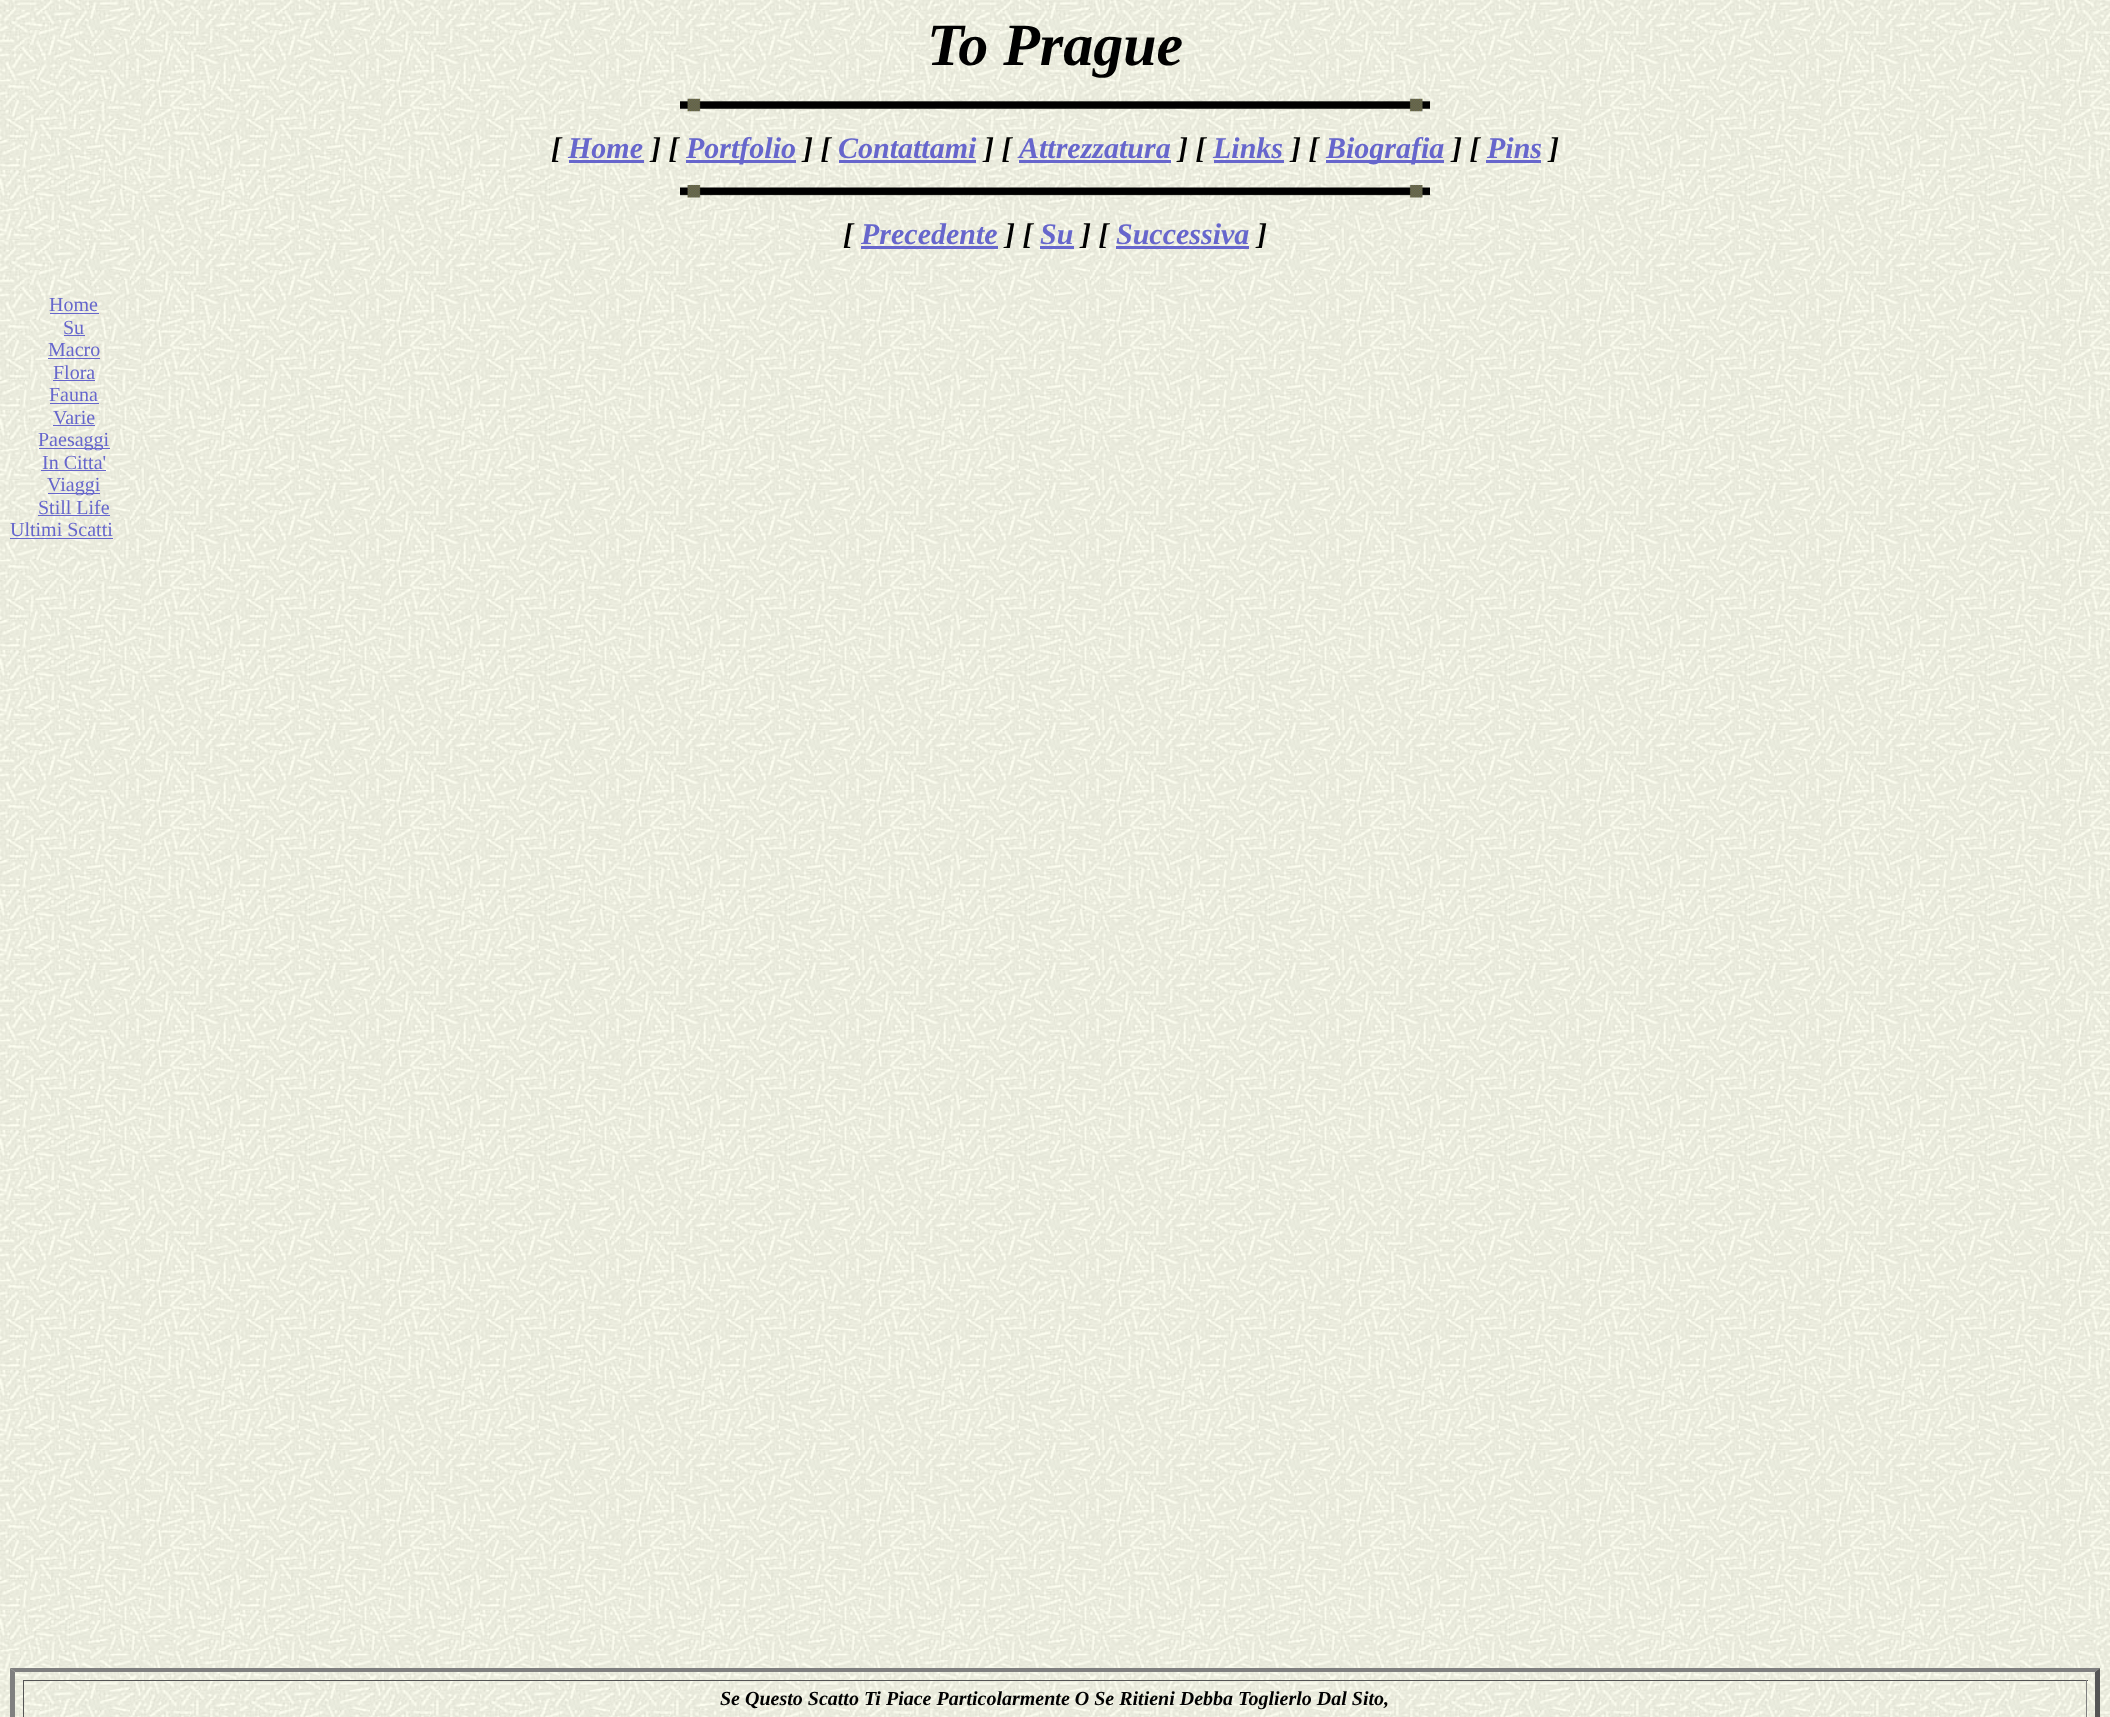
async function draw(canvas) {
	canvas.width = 2110;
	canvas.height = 1717;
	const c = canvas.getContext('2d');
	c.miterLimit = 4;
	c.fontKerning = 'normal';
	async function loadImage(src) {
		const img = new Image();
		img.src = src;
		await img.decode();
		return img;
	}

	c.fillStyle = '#fff';
	c.fillRect(0, 0, 2110, 1717);
	c.drawImage(await loadImage('img1.png'), 0, 0, 2110, 1717);
	c.font = 'italic bold 60px Liberation Serif';
	c.fillStyle = '#000';
	c.fillText('To Prague', 927, 65);
	c.drawImage(await loadImage('img2.png'), 680, 98, 750, 14);
	c.font = 'italic bold 30px Liberation Serif';
	c.fillText('[', 551, 158);
	c.fillStyle = '#66c';
	c.fillText('Home', 568, 158);
	c.fillRect(569, 160, 75, 3);
	c.fillStyle = '#000';
	c.fillText('] [', 651, 158);
	c.fillStyle = '#66c';
	c.fillRect(686, 160, 110, 3);
	c.fillText('Portfolio', 686, 158);
	c.fillStyle = '#000';
	c.fillText('] [', 803, 158);
	c.fillStyle = '#66c';
	c.fillText('Contattami', 838, 158);
	c.fillRect(839, 160, 137, 3);
	c.fillStyle = '#000';
	c.fillText('] [', 984, 158);
	c.fillStyle = '#66c';
	c.fillText('Attrezzatura', 1019, 158);
	c.fillRect(1019, 160, 152, 3);
	c.fillStyle = '#000';
	c.fillText('] [', 1178, 158);
	c.fillStyle = '#66c';
	c.fillText('Links', 1213, 158);
	c.fillRect(1214, 160, 70, 3);
	c.fillStyle = '#000';
	c.fillText('] [', 1291, 158);
	c.fillStyle = '#66c';
	c.fillRect(1326, 160, 118, 3);
	c.fillText('Biografia', 1326, 158);
	c.fillStyle = '#000';
	c.fillText('] [', 1452, 158);
	c.fillStyle = '#66c';
	c.fillText('Pins', 1487, 158);
	c.fillRect(1486, 160, 55, 3);
	c.fillStyle = '#000';
	c.fillText(']', 1549, 158);
	c.drawImage(await loadImage('img3.png'), 680, 185, 750, 13);
	c.fillText('[', 843, 244);
	c.fillStyle = '#66c';
	c.fillText('Precedente', 861, 244);
	c.fillRect(861, 246, 137, 3);
	c.fillStyle = '#000';
	c.fillText('] [', 1005, 244);
	c.fillStyle = '#66c';
	c.fillText('Su', 1040, 244);
	c.fillRect(1040, 246, 34, 3);
	c.fillStyle = '#000';
	c.fillText('] [', 1081, 244);
	c.fillStyle = '#66c';
	c.fillText('Successiva', 1116, 244);
	c.fillRect(1116, 246, 133, 3);
	c.fillStyle = '#000';
	c.fillText(']', 1257, 244);
	c.font = '20px Liberation Serif';
	c.fillStyle = '#66c';
	c.fillText('Home', 49, 311);
	c.fillRect(50, 313, 49, 1);
	c.fillText('Su', 63, 334);
	c.fillRect(64, 335, 21, 1);
	c.fillText('Macro', 48, 356);
	c.fillRect(48, 358, 52, 1);
	c.fillText('Flora', 53, 379);
	c.fillRect(53, 380, 42, 1);
	c.fillText('Fauna', 49, 401);
	c.fillRect(50, 403, 49, 1);
	c.fillText('Varie', 53, 424);
	c.fillRect(53, 425, 42, 1);
	c.fillRect(39, 448, 71, 1);
	c.fillText('Paesaggi', 38, 446);
	c.fillText('In Citta\'', 42, 469);
	c.fillRect(41, 470, 65, 1);
	c.fillRect(48, 493, 52, 1);
	c.fillText('Viaggi', 47, 491);
	c.fillText('Still Life', 38, 514);
	c.fillRect(38, 515, 72, 1);
	c.fillText('Ultimi Scatti', 10, 536);
	c.fillRect(10, 538, 103, 1);
	c.fillStyle = '#808080';
	c.beginPath();
	c.moveTo(10, 1668);
	c.lineTo(2100, 1668);
	c.lineTo(2095, 1672);
	c.lineTo(15, 1672);
	c.closePath();
	c.fill();
	c.fillStyle = '#555';
	c.beginPath();
	c.moveTo(2100, 1668);
	c.lineTo(2100, 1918);
	c.lineTo(2095, 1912);
	c.lineTo(2095, 1672);
	c.closePath();
	c.fill();
	c.fillStyle = '#808080';
	c.beginPath();
	c.moveTo(10, 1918);
	c.lineTo(10, 1668);
	c.lineTo(15, 1672);
	c.lineTo(15, 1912);
	c.closePath();
	c.fill();
	for (const [x, y, w, h, color] of [
		[23, 1680, 2065, 1, '#555'],
		[2086, 1680, 1, 37, '#808080'],
		[23, 1680, 1, 37, '#555'],
	]) {
		c.fillStyle = color;
		c.fillRect(x, y, w, h);
	}
	c.font = 'italic bold 20px Liberation Serif';
	c.fillStyle = '#000';
	c.fillText('Se Questo Scatto Ti Piace Particolarmente O Se Ritieni Debba Toglierlo Dal Sito,', 720, 1705);
}

draw(document.querySelector('canvas'));
